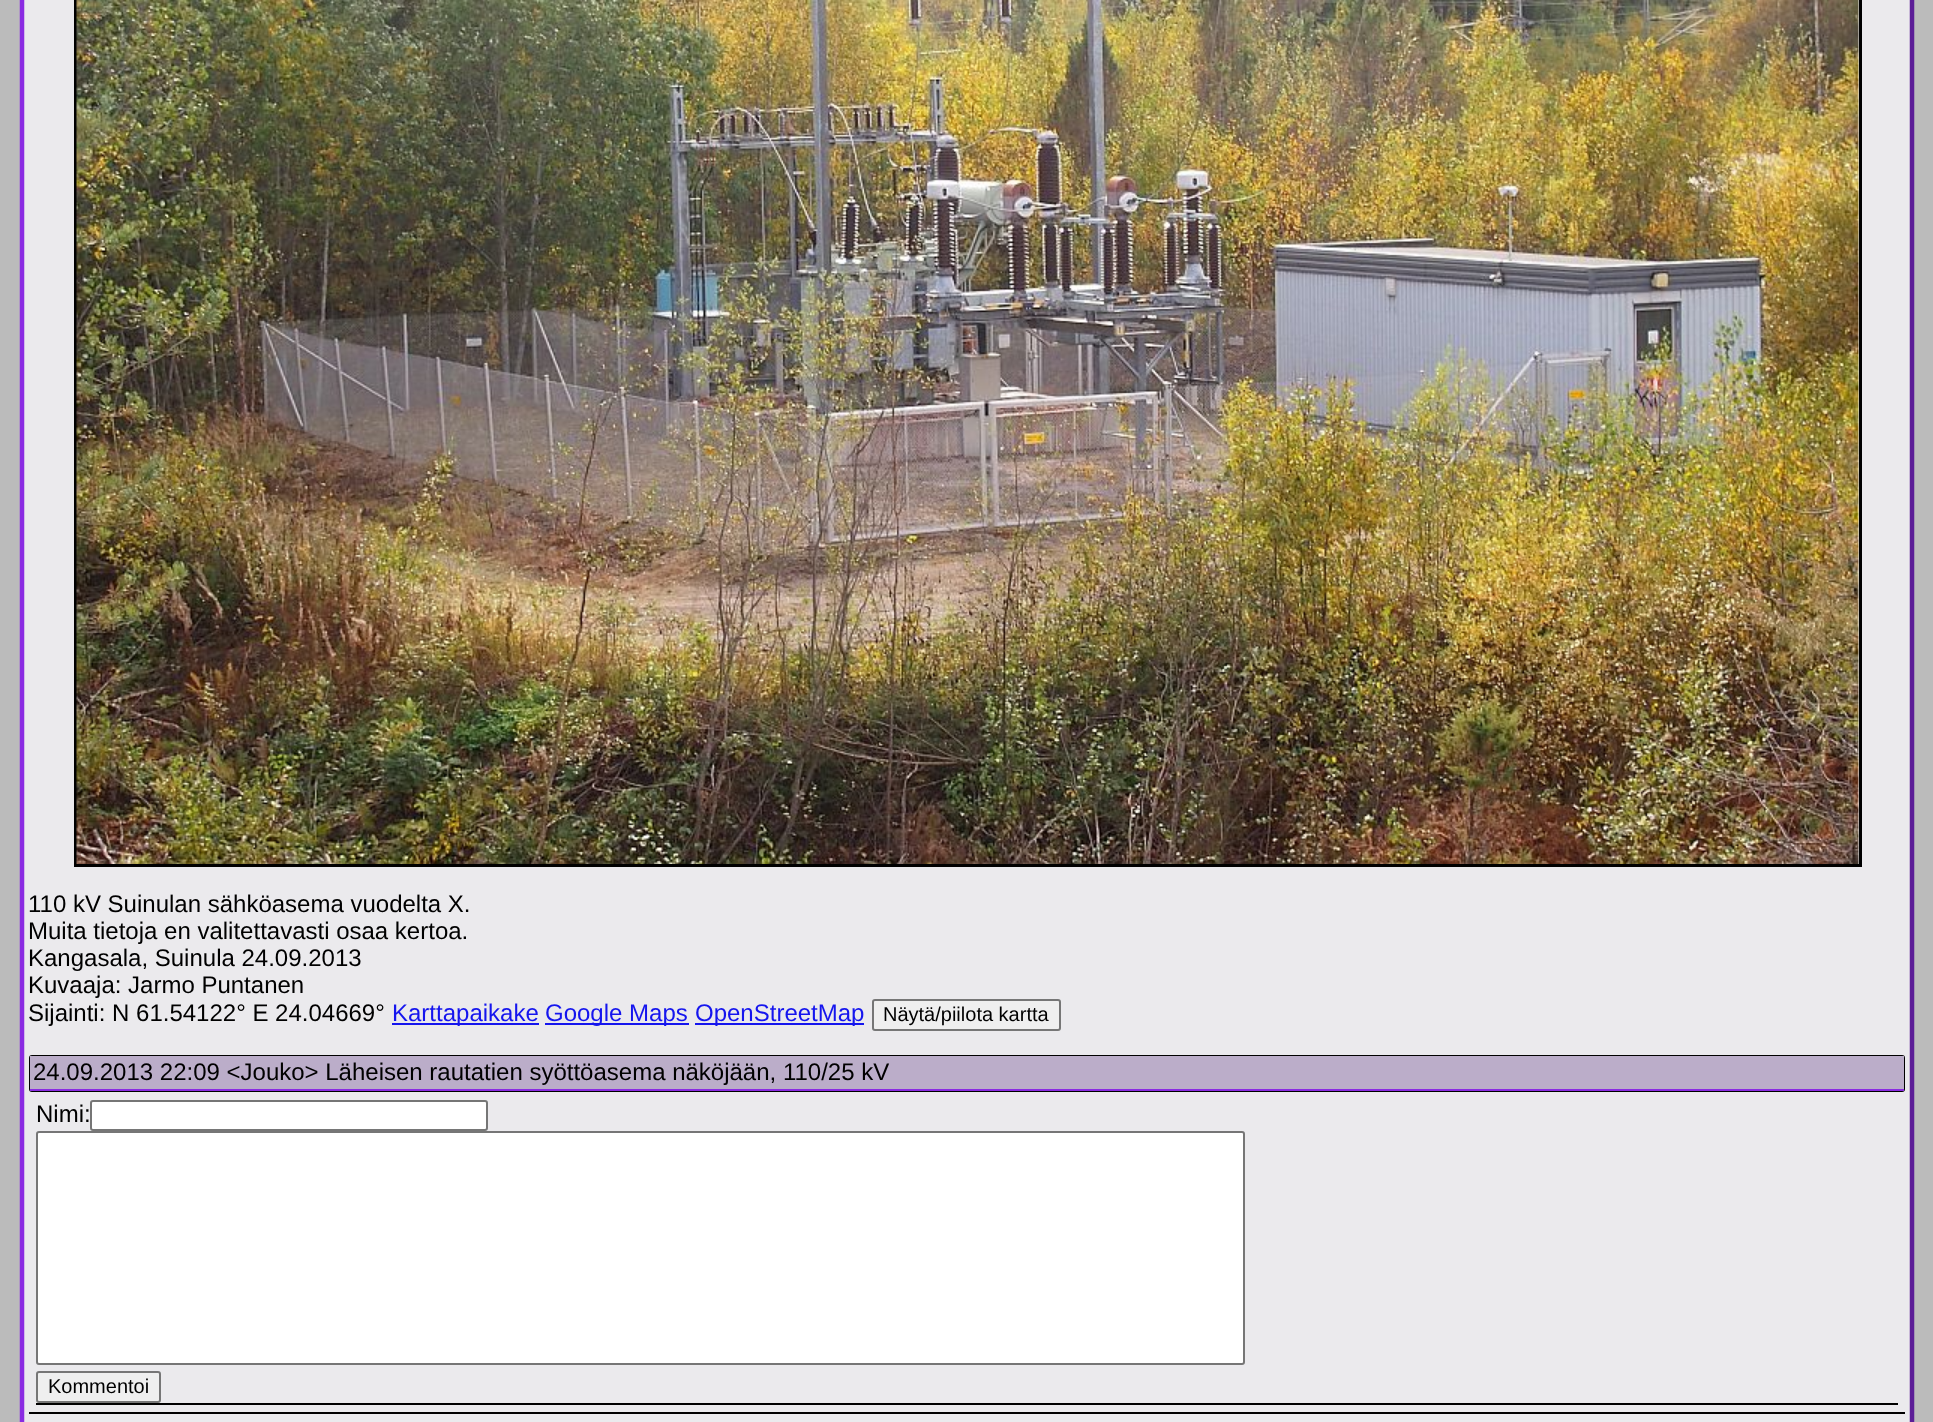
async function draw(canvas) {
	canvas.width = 1933;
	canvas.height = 1422;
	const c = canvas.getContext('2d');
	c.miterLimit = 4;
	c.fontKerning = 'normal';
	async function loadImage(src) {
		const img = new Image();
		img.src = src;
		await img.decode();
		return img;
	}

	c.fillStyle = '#bbb';
	c.fillRect(0, 0, 1933, 1422);
	c.fillStyle = '#ebeaed';
	c.fillRect(24, 0, 1886, 1422);
	c.beginPath();
	c.moveTo(1906, -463);
	c.bezierCurveTo(1909.5, -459, 1912, -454, 1912, -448.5);
	c.lineTo(1912, 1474.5);
	c.bezierCurveTo(1912, 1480, 1909.5, 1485, 1906, 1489);
	c.bezierCurveTo(1902, 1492.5, 1897, 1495, 1891.5, 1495);
	c.lineTo(42, 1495);
	c.bezierCurveTo(36.5, 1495, 31.5, 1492.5, 27.5, 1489);
	c.strokeStyle = '#5c1d97';
	c.lineWidth = 4.5;
	c.stroke();
	c.beginPath();
	c.moveTo(27.5, 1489);
	c.bezierCurveTo(24, 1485, 22, 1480, 22, 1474.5);
	c.lineTo(22, -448.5);
	c.bezierCurveTo(22, -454, 24, -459, 27.5, -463);
	c.bezierCurveTo(31.5, -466.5, 36.5, -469, 42, -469);
	c.lineTo(1891.5, -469);
	c.bezierCurveTo(1897, -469, 1902, -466.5, 1906, -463);
	c.strokeStyle = '#8a2be2';
	c.stroke();
	c.strokeStyle = '#000';
	c.lineWidth = 3;
	c.strokeRect(75.5, -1.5, 1785, 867);
	c.drawImage(await loadImage('img1.png'), 76, 0, 1783, 864);
	c.font = '24px Liberation Sans';
	c.fillStyle = '#000';
	for (const [text, x, y] of [
		['110 kV Suinulan sähköasema vuodelta X.', 28, 912],
		['Muita tietoja en valitettavasti osaa kertoa.', 28, 939],
		['Kangasala, Suinula 24.09.2013', 28, 966],
		['Kuvaaja: Jarmo Puntanen', 28, 993],
		['Sijainti: N 61.54122° E 24.04669°', 28, 1021],
	]) {
		c.fillText(text, x, y);
	}
	c.fillStyle = '#1515ee';
	c.fillRect(392, 1023, 147, 2);
	c.fillText('Karttapaikake', 392, 1021);
	c.fillRect(545, 1023, 144, 2);
	c.fillText('Google Maps', 545, 1021);
	c.fillRect(695, 1023, 169, 2);
	c.fillText('OpenStreetMap', 695, 1021);
	c.fillStyle = '#efefef';
	c.beginPath();
	c.roundRect(873, 1000, 187, 30, 2);
	c.fill();
	c.strokeStyle = '#767676';
	c.lineWidth = 2;
	c.stroke();
	c.font = '20px Liberation Sans';
	c.fillStyle = '#000';
	c.fillText('Näytä/piilota kartta', 883, 1021);
	c.beginPath();
	c.roundRect(30, 1056, 1874, 35, 2);
	c.strokeStyle = '#000';
	c.stroke();
	c.fillStyle = '#bbadc9';
	c.fillRect(30, 1056, 1874, 33);
	c.fillStyle = '#8a2be2';
	c.fillRect(30, 1089, 1874, 2);
	c.font = '24px Liberation Sans';
	c.fillStyle = '#000';
	c.fillText('24.09.2013 22:09 <Jouko> Läheisen rautatien syöttöasema näköjään, 110/25 kV', 33, 1080);
	c.fillText('Nimi:', 36, 1122);
	c.fillStyle = '#fff';
	c.beginPath();
	c.roundRect(91, 1101, 396, 29, 2);
	c.fill();
	c.strokeStyle = '#767676';
	c.stroke();
	c.beginPath();
	c.roundRect(37, 1132, 1207, 232, 2);
	c.fill();
	c.stroke();
	c.fillStyle = '#efefef';
	c.beginPath();
	c.roundRect(37, 1372, 123, 30, 2);
	c.fill();
	c.stroke();
	c.font = '20px Liberation Sans';
	c.fillStyle = '#000';
	c.fillText('Kommentoi', 48, 1393);
	c.fillRect(36, 1403, 1862, 2);
	c.fillRect(29, 1412, 1876, 2);
}

draw(document.querySelector('canvas'));
